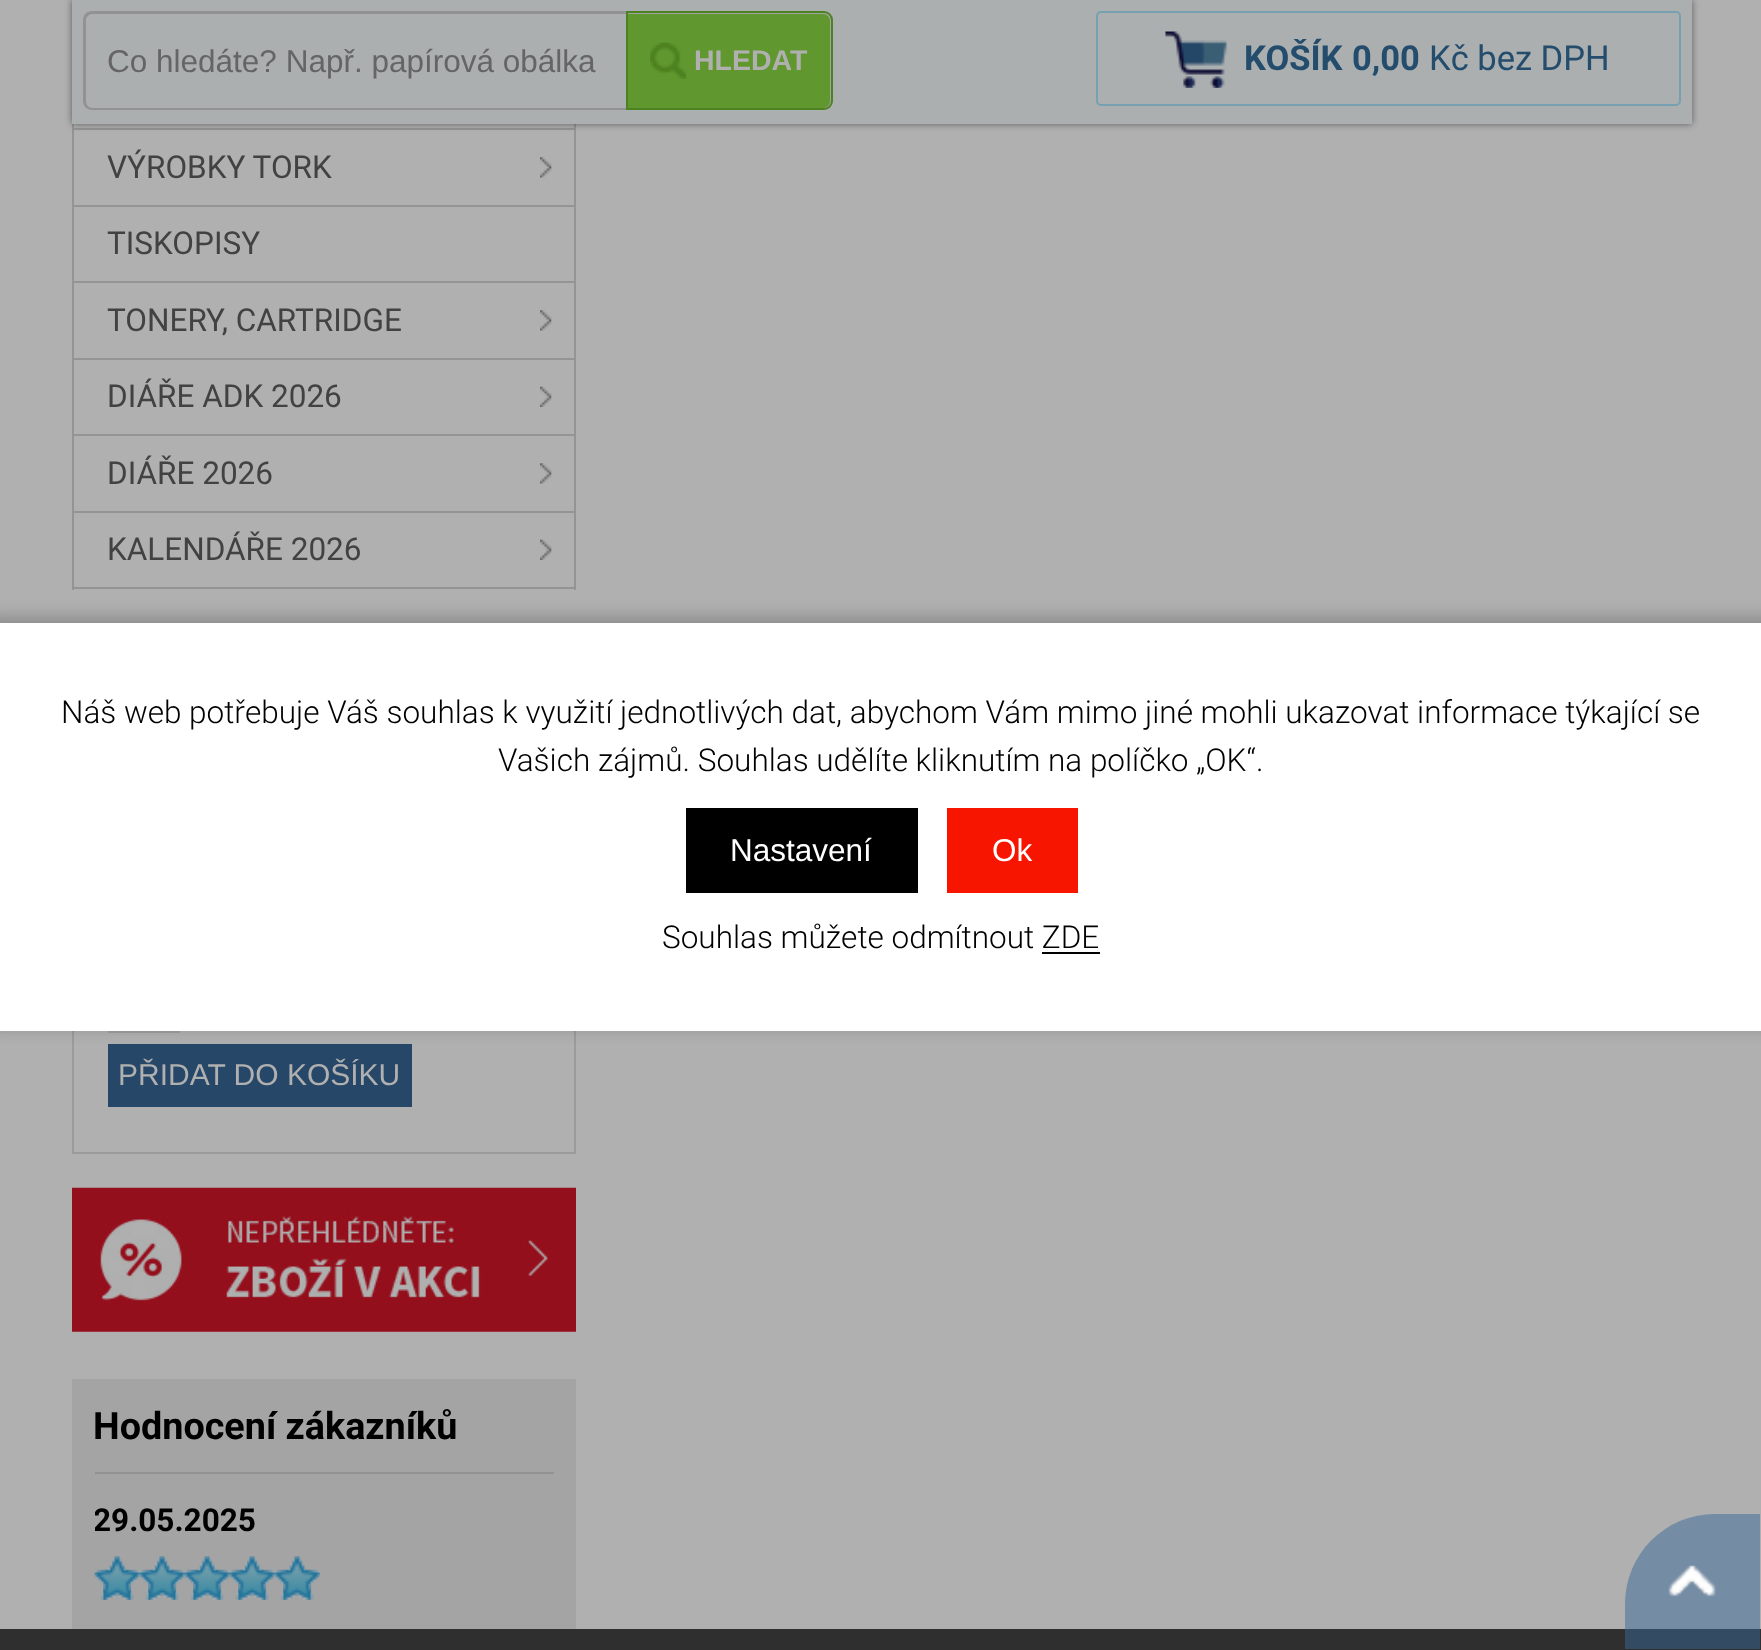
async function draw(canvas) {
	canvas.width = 1761;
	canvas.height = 1650;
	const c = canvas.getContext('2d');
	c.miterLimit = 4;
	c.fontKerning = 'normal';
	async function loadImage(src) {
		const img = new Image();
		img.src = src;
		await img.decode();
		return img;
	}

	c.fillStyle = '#b0b0b0';
	c.fillRect(0, 0, 1761, 1650);
	for (const [x, y, w, h, color] of [
		[574, 124, 2, 466, '#949494'],
		[72, 128, 504, 2, '#949494'],
		[72, 124, 2, 7, '#949494'],
		[72, 205, 504, 2, '#949494'],
		[72, 131, 2, 76, '#949494'],
	]) {
		c.fillStyle = color;
		c.fillRect(x, y, w, h);
	}
	c.fillStyle = '#23232399';
	c.filter = 'blur(3.5px)';
	c.beginPath();
	c.rect(72, 0, 1620, 124);
	c.fill();
	c.filter = 'none';
	c.fillStyle = '#abafb0';
	c.fillRect(72, 0, 1620, 124);
	c.fillStyle = '#919293';
	c.beginPath();
	c.moveTo(92, 11);
	c.lineTo(626, 11);
	c.lineTo(626, 110);
	c.lineTo(92, 110);
	c.bezierCurveTo(87, 110, 83, 106, 83, 101);
	c.lineTo(83, 20);
	c.bezierCurveTo(83, 15, 87, 11, 92, 11);
	c.closePath();
	c.moveTo(92, 14);
	c.lineTo(626, 14);
	c.lineTo(626, 108);
	c.lineTo(92, 108);
	c.bezierCurveTo(89, 108, 86, 105, 86, 101);
	c.lineTo(86, 20);
	c.bezierCurveTo(86, 17, 89, 14, 92, 14);
	c.closePath();
	c.fill('evenodd');
	c.font = '31.5px Liberation Sans';
	c.fillStyle = '#656565';
	c.fillText('Co hledáte? Např. papírová obálka', 107, 72);
	c.fillStyle = '#a2a2a2';
	c.beginPath();
	c.roundRect(627, 12, 205, 97, [0, 8, 8, 0]);
	c.fill();
	c.strokeStyle = '#4d8220';
	c.lineWidth = 2;
	c.stroke();
	c.fillStyle = '#60972f';
	c.beginPath();
	c.roundRect(628, 14, 202, 94, [0, 7, 7, 0]);
	c.fill();
	c.drawImage(await loadImage('img1.png'), 650, 42, 37, 37);
	c.font = 'bold 28.5px Liberation Sans';
	c.fillStyle = '#b0b0b0';
	c.fillText('HLEDAT', 694, 70);
	c.drawImage(await loadImage('img2.png'), 1165, 31, 62, 57);
	c.beginPath();
	c.roundRect(1097, 12, 583, 93, 4);
	c.strokeStyle = '#77a1b0';
	c.stroke();
	c.font = 'bold 34.5px Roboto';
	c.fillStyle = '#244c6c';
	c.fillText('KOŠÍK', 1244, 70);
	c.fillText('0,00', 1352, 70);
	c.font = '34.5px Roboto';
	c.fillText('Kč bez DPH', 1429, 70);
	c.drawImage(await loadImage('img3.png'), 540, 157, 12, 21);
	c.font = '31.5px Roboto';
	c.fillStyle = '#424242';
	c.fillText('VÝROBKY TORK', 107, 178);
	c.fillStyle = '#949494';
	c.fillRect(72, 281, 504, 2);
	c.fillRect(72, 207, 2, 77);
	c.fillStyle = '#424242';
	c.fillText('TISKOPISY', 107, 254);
	c.fillStyle = '#949494';
	c.fillRect(72, 358, 504, 2);
	c.fillRect(72, 284, 2, 76);
	c.drawImage(await loadImage('img4.png'), 540, 310, 12, 21);
	c.fillStyle = '#424242';
	c.fillText('TONERY, CARTRIDGE', 107, 331);
	c.fillStyle = '#949494';
	c.fillRect(72, 434, 504, 2);
	c.fillRect(72, 360, 2, 77);
	c.drawImage(await loadImage('img5.png'), 540, 386, 12, 21);
	c.fillStyle = '#424242';
	c.fillText('DIÁŘE ADK 2026', 107, 407);
	c.fillStyle = '#949494';
	c.fillRect(72, 511, 504, 2);
	c.fillRect(72, 437, 2, 76);
	c.drawImage(await loadImage('img3.png'), 540, 463, 12, 21);
	c.fillStyle = '#424242';
	c.fillText('DIÁŘE 2026', 107, 484);
	c.fillStyle = '#949494';
	c.fillRect(72, 587, 504, 2);
	c.fillRect(72, 513, 2, 77);
	c.drawImage(await loadImage('img5.png'), 540, 539, 12, 21);
	c.fillStyle = '#424242';
	c.fillText('KALENDÁŘE 2026', 107, 560);
	for (const [x, y, w, h, color] of [
		[574, 1031, 2, 123, '#9b9b9b'],
		[72, 1152, 504, 2, '#9b9b9b'],
		[72, 1031, 2, 123, '#9b9b9b'],
	]) {
		c.fillStyle = color;
		c.fillRect(x, y, w, h);
	}
	c.strokeStyle = '#9e9e9e';
	c.strokeRect(109, 973, 70, 59);
	c.fillStyle = '#264768';
	c.fillRect(108, 1044, 304, 63);
	c.font = '30px Liberation Sans';
	c.fillStyle = '#b0b0b0';
	c.fillText('PŘIDAT DO KOŠÍKU', 118, 1085);
	c.drawImage(await loadImage('img6.png'), 72, 1187, 504, 145);
	c.fillStyle = '#a4a4a4';
	c.fillRect(72, 1379, 504, 250);
	c.fillStyle = '#929292';
	c.fillRect(95, 1472, 459, 2);
	c.font = 'bold 37.75px Roboto';
	c.fillStyle = '#000';
	c.fillText('Hodnocení zákazníků', 93, 1439);
	c.save();
	c.beginPath();
	c.rect(95, 1496, 459, 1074);
	c.clip();
	c.font = 'bold 31.5px Roboto';
	c.fillText('29.05.2025', 93, 1531);
	c.restore();
	c.drawImage(await loadImage('img7.png'), 94, 1556, 226, 44);
	c.drawImage(await loadImage('img8.png'), 94, 1556, 226, 44);
	c.fillStyle = '#2f2f2f';
	c.fillRect(0, 1629, 1761, 21);
	c.fillStyle = '#00000040';
	c.filter = 'blur(9px)';
	c.beginPath();
	c.rect(-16, 619, 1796, 407);
	c.fill();
	c.filter = 'none';
	c.fillStyle = '#fff';
	c.fillRect(0, 623, 1761, 408);
	c.font = '300 31.5px Roboto';
	c.fillStyle = '#000';
	c.fillText('Náš web potřebuje Váš souhlas k využití jednotlivých dat, abychom Vám mimo jiné mohli ukazovat informace týkající se', 61, 723);
	c.fillText('Vašich zájmů. Souhlas udělíte kliknutím na políčko „OK“.', 498, 771);
	c.fillRect(686, 808, 232, 85);
	c.font = '31.5px Liberation Sans';
	c.fillStyle = '#fff';
	c.fillText('Nastavení', 730, 861);
	c.fillStyle = '#f71500';
	c.fillRect(947, 808, 131, 85);
	c.fillStyle = '#fff';
	c.fillText('Ok', 992, 861);
	c.font = '300 31.5px Roboto';
	c.fillStyle = '#000';
	c.fillText('Souhlas můžete odmítnout ZDE', 662, 948);
	c.fillRect(1042, 952, 58, 2);
	c.fillStyle = '#37679780';
	c.beginPath();
	c.roundRect(1625, 1514, 135, 135, [90, 0, 0, 0]);
	c.fill();
	c.drawImage(await loadImage('img9.png'), 1668, 1565, 48, 32);
}

draw(document.querySelector('canvas'));
